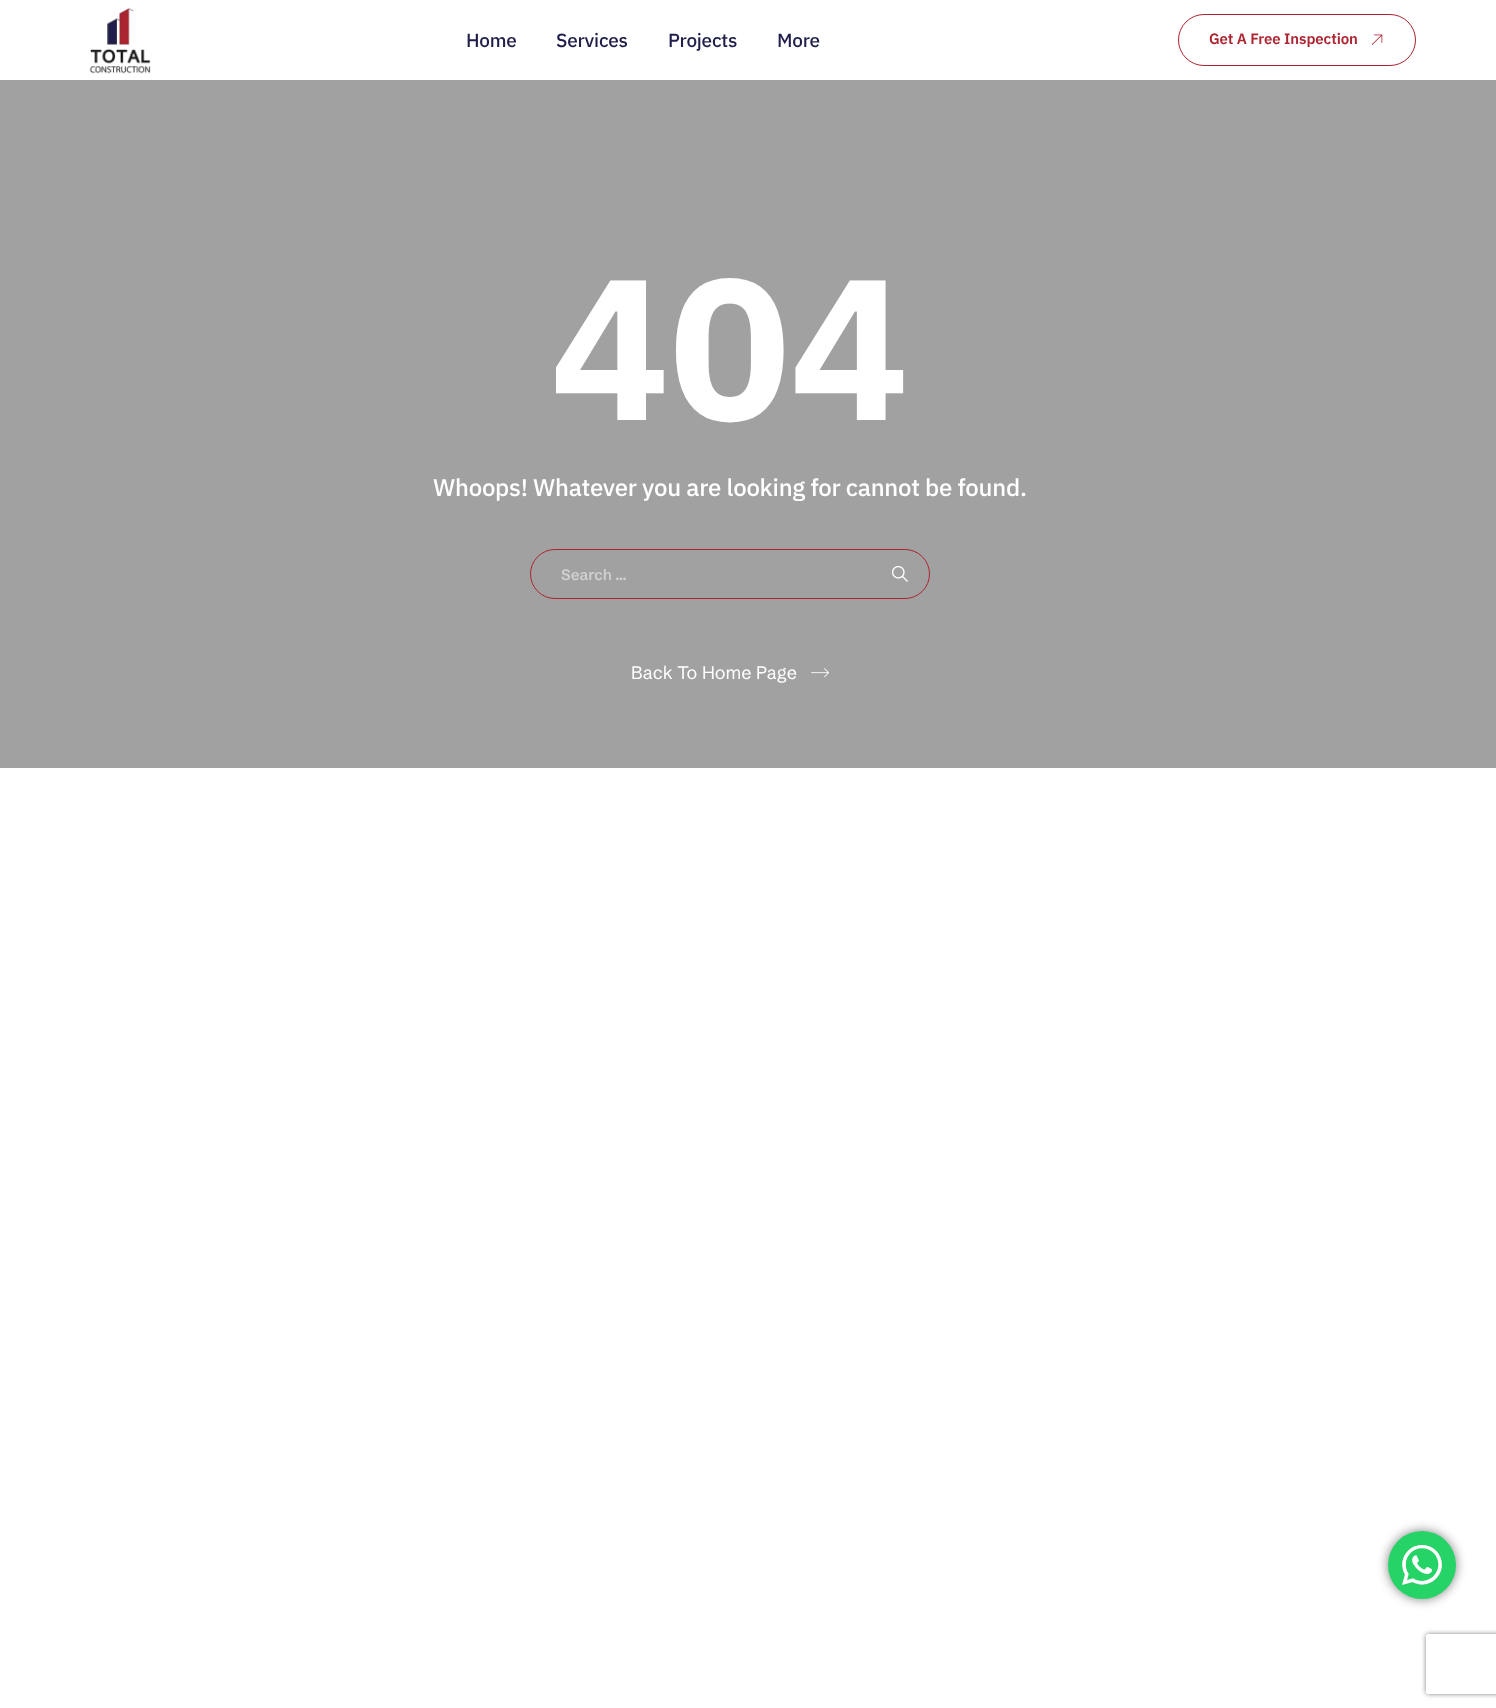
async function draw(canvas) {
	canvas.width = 1496;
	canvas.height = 1708;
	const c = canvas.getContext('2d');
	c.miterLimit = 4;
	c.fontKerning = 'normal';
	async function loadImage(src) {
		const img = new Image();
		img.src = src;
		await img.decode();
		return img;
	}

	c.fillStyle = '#fff';
	c.fillRect(0, 0, 1496, 1708);
	c.drawImage(await loadImage('img1.png'), 89, 8, 62, 66);
	c.letterSpacing = '-0.25px';
	c.font = '500 19px IBM Plex Sans';
	c.fillStyle = '#201f4b';
	for (const [text, x, y] of [
		['Home', 466, 47],
		['Services', 556, 47],
		['Projects', 668, 47],
		['More', 777, 47],
	]) {
		c.fillText(text, x, y);
	}
	c.beginPath();
	c.roundRect(1178.5, 14.5, 237, 51, 25.5);
	c.strokeStyle = '#ac2430';
	c.stroke();
	c.letterSpacing = '-0.1px';
	c.font = '600 15px IBM Plex Sans';
	c.fillStyle = '#ac2430';
	c.fillText('Get A Free Inspection', 1209, 44);
	c.drawImage(await loadImage('img2.png'), 1371, 34, 12, 11);
	c.fillStyle = '#a1a1a1';
	c.fillRect(0, 80, 1496, 688);
	c.letterSpacing = '-0.25px';
	c.font = 'bold 200px IBM Plex Sans';
	c.fillStyle = '#fff';
	c.fillText('404', 550, 420);
	c.font = '500 24px IBM Plex Sans';
	c.fillText('Whoops! Whatever you are looking for cannot be found.', 433, 496);
	c.beginPath();
	c.roundRect(530.5, 549.5, 399, 49, 24.5);
	c.stroke();
	c.letterSpacing = '0px';
	c.font = '600 15px Schibsted Grotesk';
	c.fillStyle = '#d0d0d0';
	c.fillText('Search …', 561, 580);
	c.drawImage(await loadImage('img3.png'), 892, 565, 16, 17);
	c.font = '18px Schibsted Grotesk';
	c.fillStyle = '#fff';
	c.fillText('Back To Home Page', 631, 679);
	c.drawImage(await loadImage('img4.png'), 811, 668, 18, 10);
	c.fillStyle = '#00000080';
	c.filter = 'blur(5.5px)';
	c.beginPath();
	c.roundRect(1388, 1531, 68, 68, 34);
	c.fill();
	c.filter = 'none';
	c.fillStyle = '#25d366';
	c.beginPath();
	c.arc(1422, 1565, 34, 0, 2 * Math.PI);
	c.fill();
	c.drawImage(await loadImage('img5.png'), 1402, 1545, 40, 40);
	c.save();
	c.beginPath();
	c.moveTo(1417, 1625);
	c.lineTo(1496, 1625);
	c.lineTo(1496, 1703);
	c.lineTo(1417, 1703);
	c.closePath();
	c.moveTo(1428, 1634);
	c.lineTo(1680, 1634);
	c.bezierCurveTo(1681, 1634, 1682, 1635, 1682, 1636);
	c.lineTo(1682, 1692);
	c.bezierCurveTo(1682, 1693, 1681, 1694, 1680, 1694);
	c.lineTo(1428, 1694);
	c.bezierCurveTo(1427, 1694, 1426, 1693, 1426, 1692);
	c.lineTo(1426, 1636);
	c.bezierCurveTo(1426, 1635, 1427, 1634, 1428, 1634);
	c.closePath();
	c.clip('evenodd');
	c.fillStyle = '#808080';
	c.filter = 'blur(2.5px)';
	c.beginPath();
	c.roundRect(1426, 1634, 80, 60, 2);
	c.fill();
	c.filter = 'none';
	c.restore();
}

draw(document.querySelector('canvas'));
